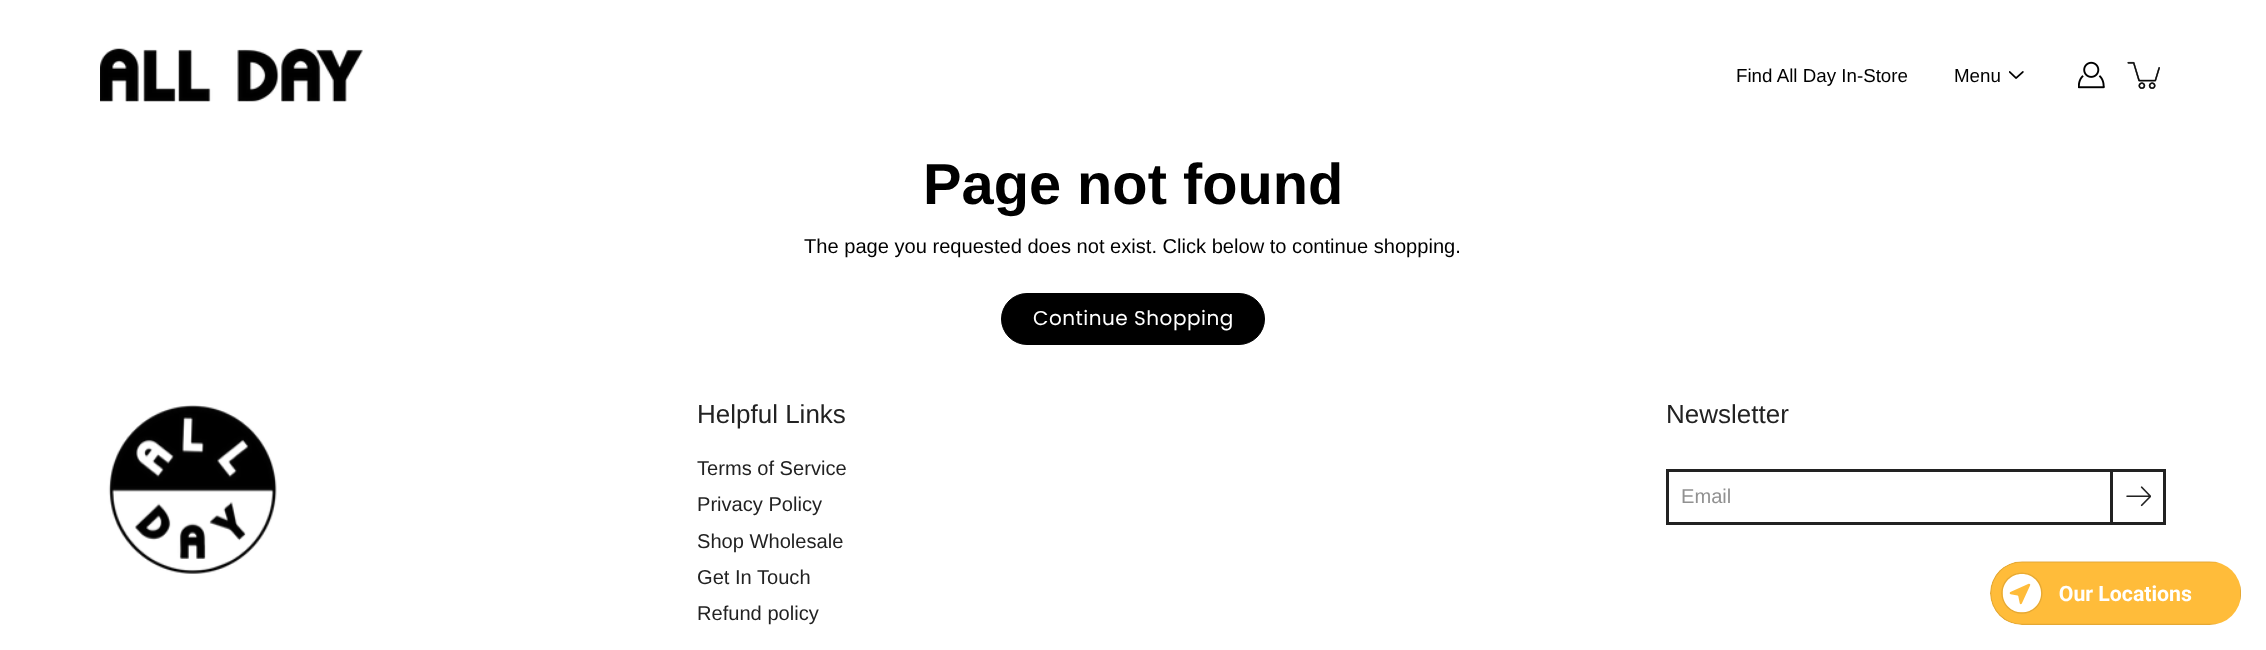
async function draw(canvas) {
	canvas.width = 2266;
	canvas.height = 650;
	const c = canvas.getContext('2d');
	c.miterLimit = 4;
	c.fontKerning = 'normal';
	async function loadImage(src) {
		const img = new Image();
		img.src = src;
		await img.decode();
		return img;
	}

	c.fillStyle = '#fff';
	c.fillRect(0, 0, 2266, 650);
	c.drawImage(await loadImage('img1.png'), 100, 48, 263, 54);
	c.font = '18.75px Liberation Sans';
	c.fillStyle = '#000';
	c.fillText('Find All Day In-Store', 1736, 82);
	c.fillText('Menu', 1954, 82);
	c.drawImage(await loadImage('img2.png'), 2009, 71, 15, 8);
	c.drawImage(await loadImage('img3.png'), 2078, 61, 27, 28);
	c.drawImage(await loadImage('img4.png'), 2127, 61, 33, 28);
	c.font = 'bold 57.75px Liberation Sans';
	c.fillText('Page not found', 923, 204);
	c.font = '20.1px Liberation Sans';
	c.fillText('The page you requested does not exist. Click below to continue shopping.', 804, 253);
	c.beginPath();
	c.roundRect(1001.5, 293.5, 263, 51, 25.5);
	c.fill();
	c.strokeStyle = '#000';
	c.stroke();
	c.letterSpacing = '0.5px';
	c.font = '20px Poppins';
	c.fillStyle = '#fff';
	c.fillText('Continue Shopping', 1033, 325);
	c.drawImage(await loadImage('img5.png'), 108, 405, 169, 169);
	c.letterSpacing = '0px';
	c.font = '26px Liberation Sans';
	c.fillStyle = '#222';
	c.fillText('Helpful Links', 697, 423);
	c.font = '20.1px Liberation Sans';
	for (const [text, x, y] of [
		['Terms of Service', 697, 475],
		['Privacy Policy', 697, 511],
		['Shop Wholesale', 697, 548],
		['Get In Touch', 697, 584],
		['Refund policy', 697, 620],
	]) {
		c.fillText(text, x, y);
	}
	c.font = '26px Liberation Sans';
	c.fillText('Newsletter', 1666, 423);
	c.strokeStyle = '#222';
	c.lineWidth = 3;
	c.strokeRect(1667.5, 470.5, 497, 53);
	c.font = '20.1px Liberation Sans';
	c.fillStyle = '#919191';
	c.fillText('Email', 1681, 503);
	c.strokeRect(2111.5, 470.5, 53, 53);
	c.drawImage(await loadImage('img6.png'), 2126, 486, 25, 21);
	c.drawImage(await loadImage('img7.png'), 1990, 561, 251, 64);
}

draw(document.querySelector('canvas'));
